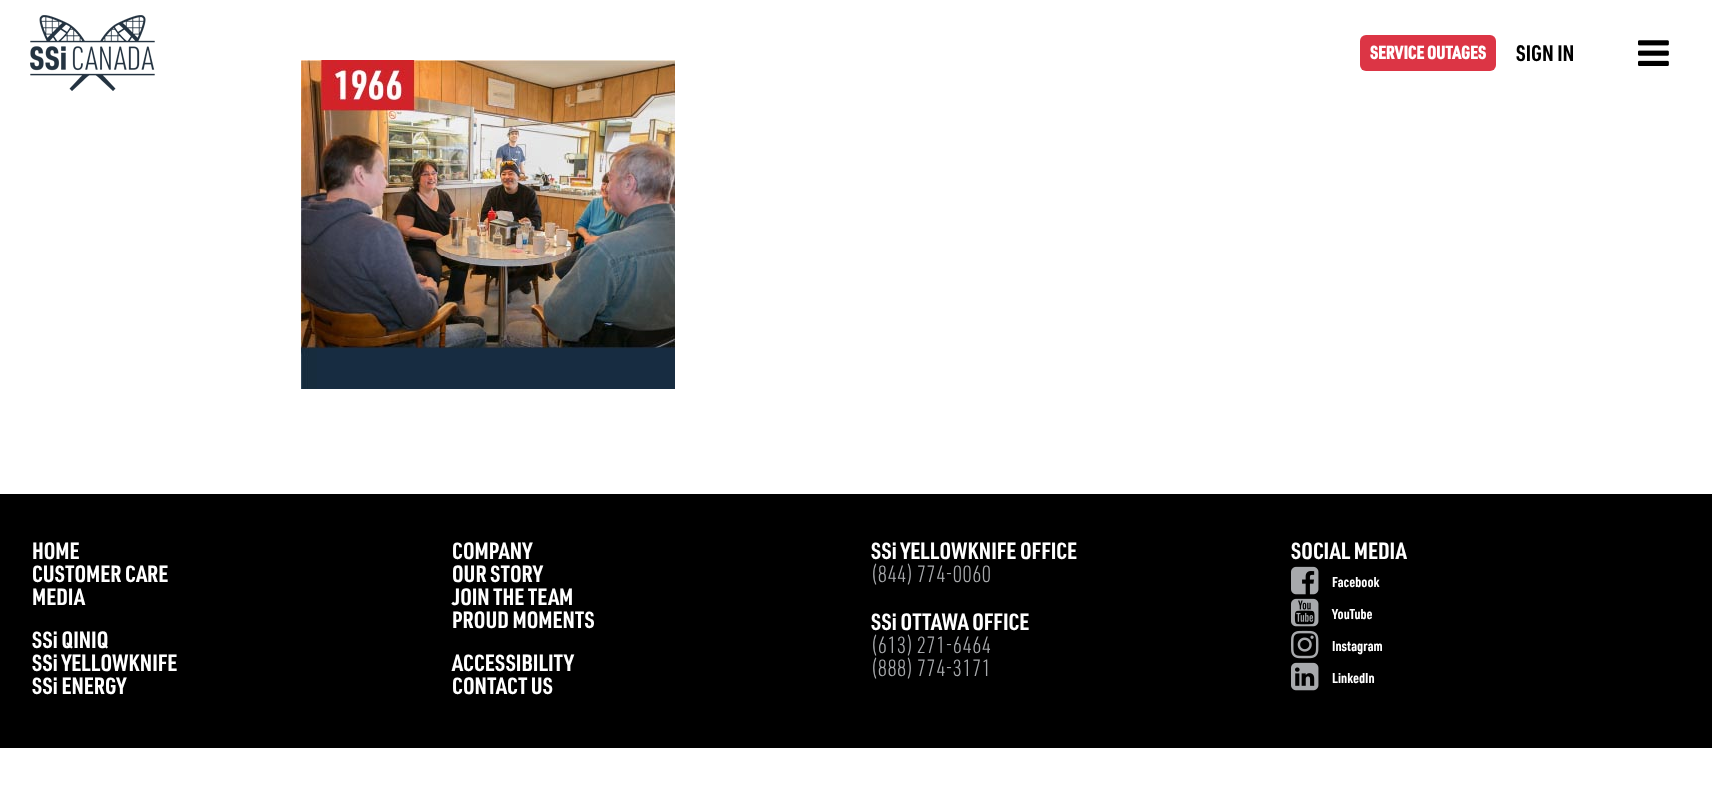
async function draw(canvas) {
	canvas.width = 1712;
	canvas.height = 801;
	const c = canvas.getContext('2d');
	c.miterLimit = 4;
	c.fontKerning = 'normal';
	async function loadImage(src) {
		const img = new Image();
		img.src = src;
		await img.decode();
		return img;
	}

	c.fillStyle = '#fff';
	c.fillRect(0, 0, 1712, 801);
	c.drawImage(await loadImage('img1.png'), 30, 15, 125, 76);
	c.fillStyle = '#dc3545';
	c.beginPath();
	c.roundRect(1360, 35, 136, 36, 6);
	c.fill();
	c.font = 'bold 18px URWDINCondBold';
	c.fillStyle = '#fff';
	c.fillText('SERVICE OUTAGES', 1370, 59);
	c.font = '22px URWDINCondBold';
	c.fillStyle = '#000';
	c.fillText('SIGN IN', 1516, 61);
	c.drawImage(await loadImage('img2.png'), 1638, 40, 31, 26);
	c.drawImage(await loadImage('img3.png'), 301, 60, 374, 329);
	c.fillRect(0, 494, 1712, 254);
	c.font = '23px URWDINCondBold';
	c.fillStyle = '#fff';
	for (const [text, x, y] of [
		['HOME', 32, 559],
		['CUSTOMER CARE', 32, 582],
		['MEDIA', 32, 605],
		['SSi QINIQ', 32, 648],
		['SSi YELLOWKNIFE', 32, 671],
		['SSi ENERGY', 32, 694],
		['COMPANY', 452, 559],
		['OUR STORY', 452, 582],
		['JOIN THE TEAM', 452, 605],
		['PROUD MOMENTS', 452, 628],
		['ACCESSIBILITY', 452, 671],
		['CONTACT US', 452, 694],
		['SSi YELLOWKNIFE OFFICE', 871, 559],
	]) {
		c.fillText(text, x, y);
	}
	c.font = '23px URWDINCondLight';
	c.fillStyle = '#a7a9ac';
	c.fillText('(844) 774-0060', 871, 582);
	c.font = '23px URWDINCondBold';
	c.fillStyle = '#fff';
	c.fillText('SSi OTTAWA OFFICE', 871, 630);
	c.font = '23px URWDINCondLight';
	c.fillStyle = '#a7a9ac';
	c.fillText('(613) 271-6464', 871, 653);
	c.fillText('(888) 774-3171', 871, 676);
	c.font = '23px URWDINCondBold';
	c.fillStyle = '#fff';
	c.fillText('SOCIAL MEDIA', 1291, 559);
	c.drawImage(await loadImage('img4.png'), 1291, 566, 28, 29);
	c.font = '14px URWDINCondBold';
	c.fillText('Facebook', 1332, 587);
	c.drawImage(await loadImage('img5.png'), 1291, 598, 28, 29);
	c.fillText('YouTube', 1332, 619);
	c.drawImage(await loadImage('img6.png'), 1291, 630, 28, 29);
	c.fillText('Instagram', 1332, 651);
	c.drawImage(await loadImage('img7.png'), 1291, 662, 28, 29);
	c.fillText('LinkedIn', 1332, 683);
}

draw(document.querySelector('canvas'));
